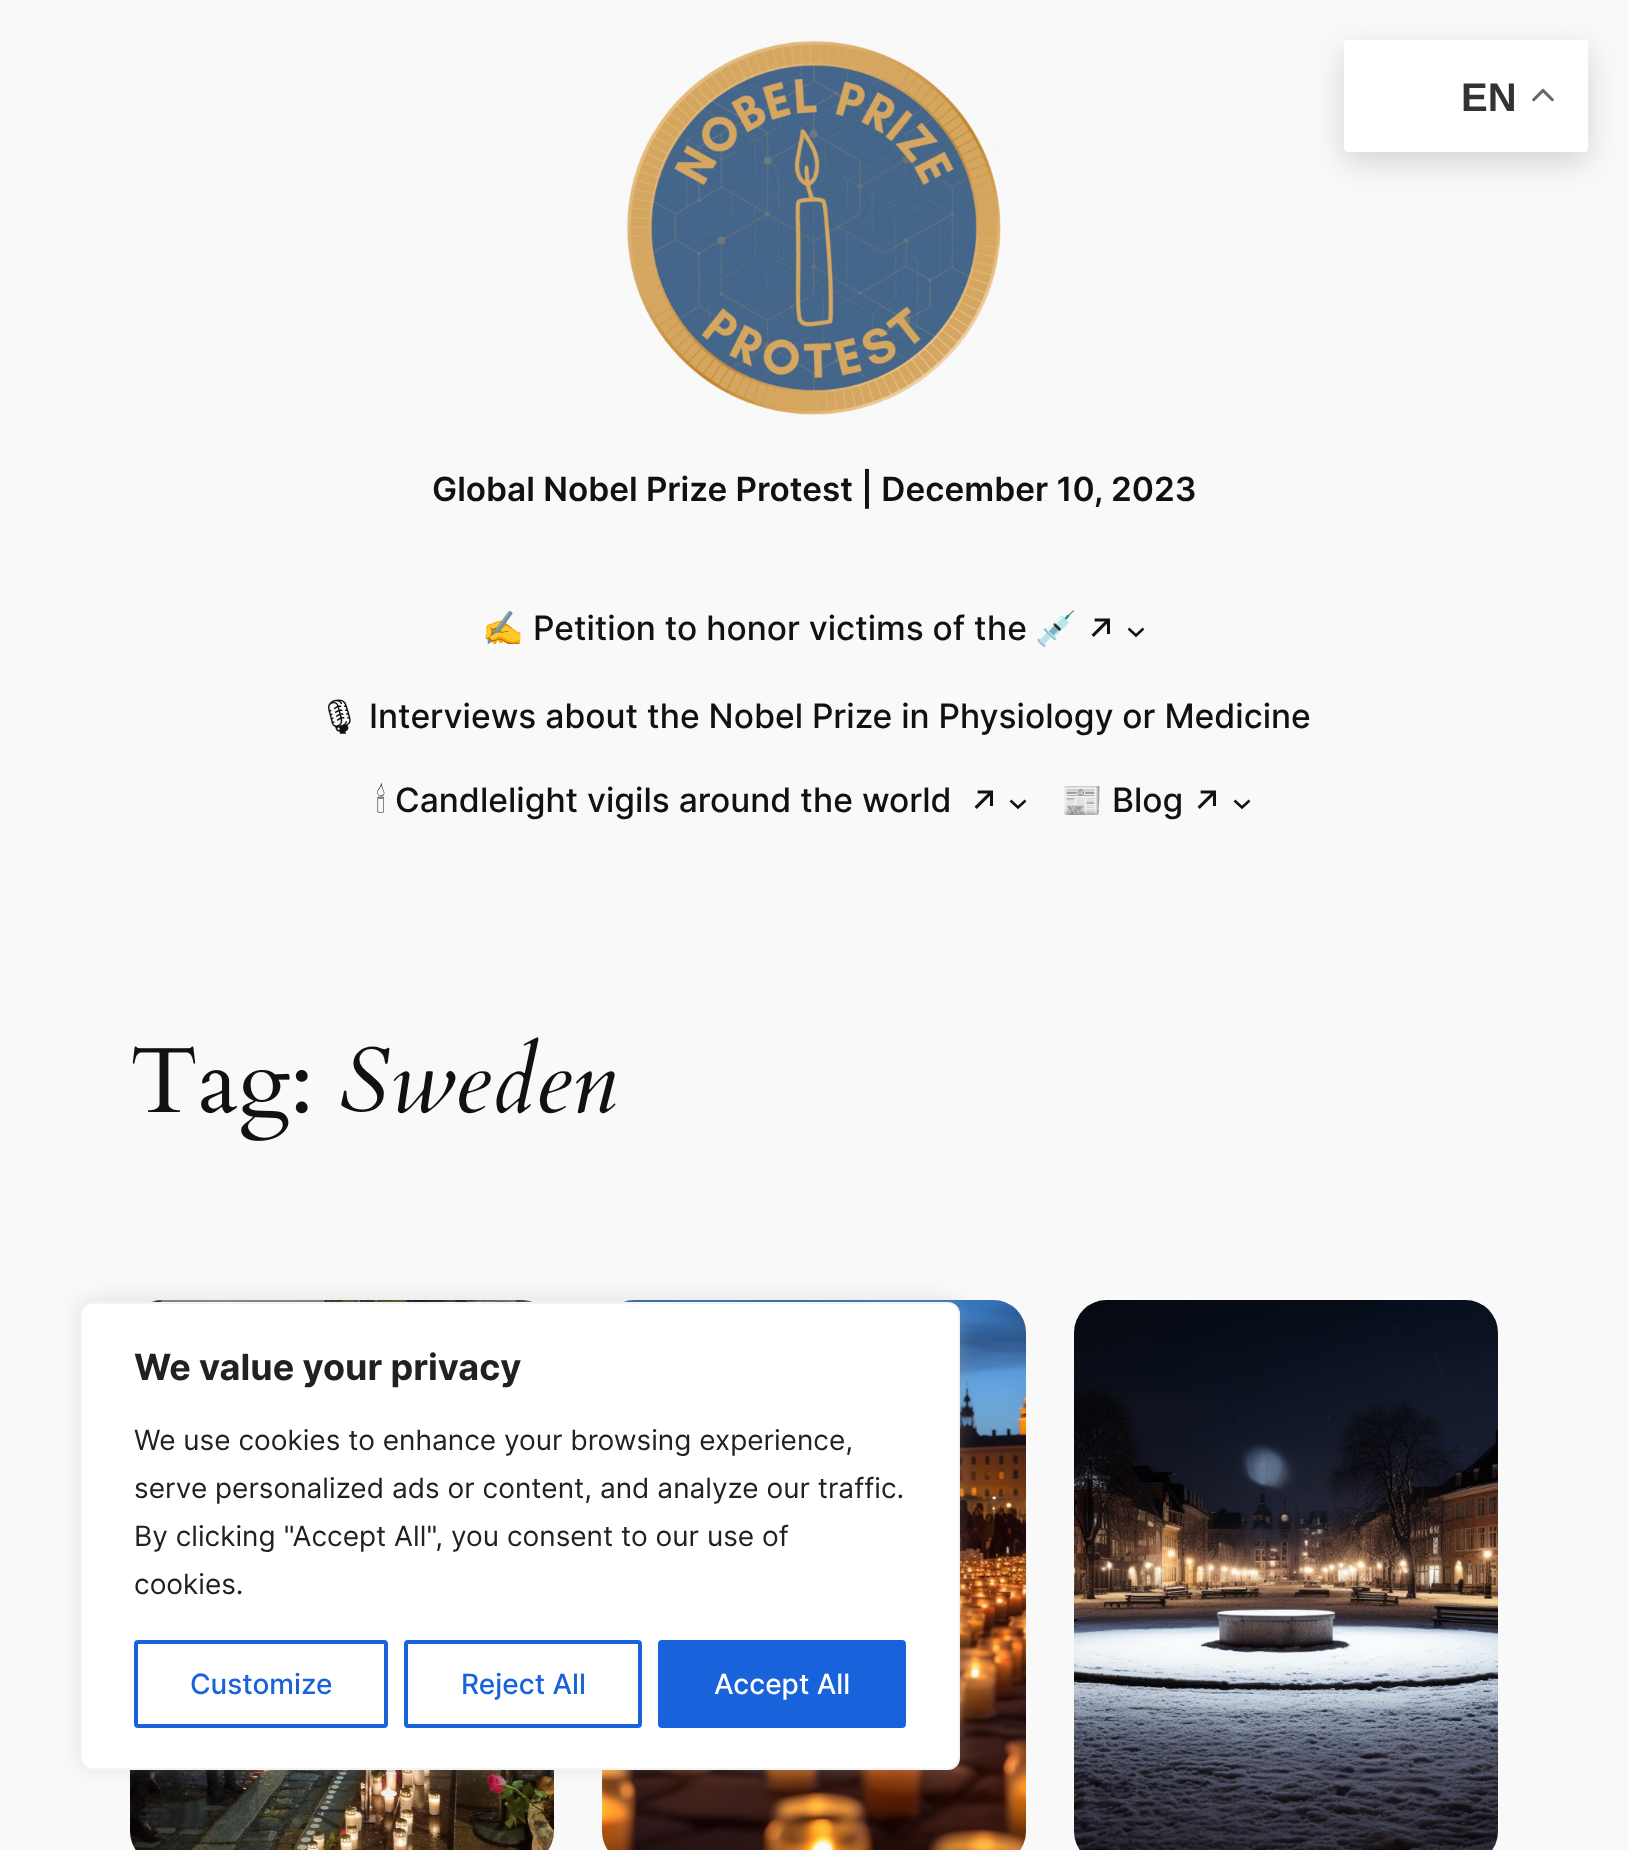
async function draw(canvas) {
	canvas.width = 1628;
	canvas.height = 1850;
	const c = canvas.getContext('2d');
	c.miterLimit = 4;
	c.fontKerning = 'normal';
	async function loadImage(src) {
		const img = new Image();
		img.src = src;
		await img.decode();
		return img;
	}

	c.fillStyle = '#f9f9f9';
	c.fillRect(0, 0, 1628, 1850);
	c.fillStyle = '#00000026';
	c.filter = 'blur(15px)';
	c.beginPath();
	c.roundRect(1344, 50, 244, 112, 4);
	c.fill();
	c.filter = 'none';
	c.fillStyle = '#fff';
	c.beginPath();
	c.roundRect(1344, 40, 244, 112, 4);
	c.fill();
	c.font = 'bold 40px Liberation Sans';
	c.fillStyle = '#333';
	c.fillText('EN', 1461, 111);
	c.drawImage(await loadImage('img1.png'), 1532, 88, 22, 14);
	c.drawImage(await loadImage('img2.png'), 626, 40, 376, 376);
	c.font = '600 33.35px Inter';
	c.fillStyle = '#111';
	c.fillText('Global Nobel Prize Protest | December 10, 2023', 432, 501);
	c.font = '33.6px Noto Color Emoji';
	c.fillText('✍️', 482, 640);
	c.font = '500 33.6px Inter';
	c.fillText('Petition to honor victims of the', 533, 640);
	c.font = '33.6px Noto Color Emoji';
	c.fillText('💉', 1035, 640);
	c.font = '500 33.6px Inter';
	c.fillText('↗', 1085, 643);
	c.beginPath();
	c.moveTo(1128.5, 628.5);
	c.lineTo(1136, 635.5);
	c.lineTo(1143.5, 628.5);
	c.strokeStyle = '#111';
	c.lineWidth = 2.5;
	c.stroke();
	c.font = '500 33.6px Noto Emoji';
	c.fillText('🎙', 318, 728);
	c.font = '500 33.6px Inter';
	c.fillText('Interviews about the Nobel Prize in Physiology or Medicine', 369, 728);
	c.font = '33.6px FreeSerif';
	c.fillText('🕯', 376, 812);
	c.font = '500 33.6px Inter';
	c.fillText('Candlelight vigils around the world', 395, 812);
	c.fillText('↗', 968, 815);
	c.beginPath();
	c.moveTo(1010.5, 800.5);
	c.lineTo(1018, 807.5);
	c.lineTo(1025.5, 800.5);
	c.stroke();
	c.font = '33.6px Noto Color Emoji';
	c.fillText('📰', 1061, 812);
	c.font = '500 33.6px Inter';
	c.fillText('Blog', 1112, 812);
	c.fillText('↗', 1191, 815);
	c.beginPath();
	c.moveTo(1234.5, 800.5);
	c.lineTo(1242, 807.5);
	c.lineTo(1249.5, 800.5);
	c.stroke();
	c.drawImage(await loadImage('img3.png'), 132, 1046, 176, 95);
	c.font = 'italic 93px Cardo';
	c.fillText('Sweden', 339, 1112);
	c.drawImage(await loadImage('img4.png'), 130, 1300, 424, 550);
	c.drawImage(await loadImage('img5.png'), 602, 1300, 424, 550);
	c.drawImage(await loadImage('img6.png'), 1074, 1300, 424, 550);
	c.fillStyle = '#acabab4d';
	c.filter = 'blur(10px)';
	c.beginPath();
	c.roundRect(80, 1300, 880, 468, 12);
	c.fill();
	c.filter = 'none';
	c.fillStyle = '#fff';
	c.beginPath();
	c.roundRect(81, 1303, 878, 466, 11);
	c.fill();
	c.strokeStyle = '#f4f4f4';
	c.lineWidth = 2;
	c.stroke();
	c.font = 'bold 36px Inter';
	c.fillStyle = '#212121';
	c.fillText('We value your privacy', 134, 1380);
	c.font = '28px Inter';
	for (const [text, x, y] of [
		['We use cookies to enhance your browsing experience,', 134, 1450],
		['serve personalized ads or content, and analyze our traffic.', 134, 1498],
		['By clicking "Accept All", you consent to our use of', 134, 1546],
		['cookies.', 134, 1594],
	]) {
		c.fillText(text, x, y);
	}
	c.beginPath();
	c.roundRect(136, 1642, 250, 84, 2);
	c.strokeStyle = '#1863dc';
	c.lineWidth = 4;
	c.stroke();
	c.font = '500 28px Inter';
	c.fillStyle = '#1863dc';
	c.fillText('Customize', 190, 1694);
	c.beginPath();
	c.roundRect(406, 1642, 234, 84, 2);
	c.stroke();
	c.fillText('Reject All', 461, 1694);
	c.beginPath();
	c.roundRect(660, 1642, 244, 84, 2);
	c.fill();
	c.stroke();
	c.fillStyle = '#fff';
	c.fillText('Accept All', 714, 1694);
}

draw(document.querySelector('canvas'));
